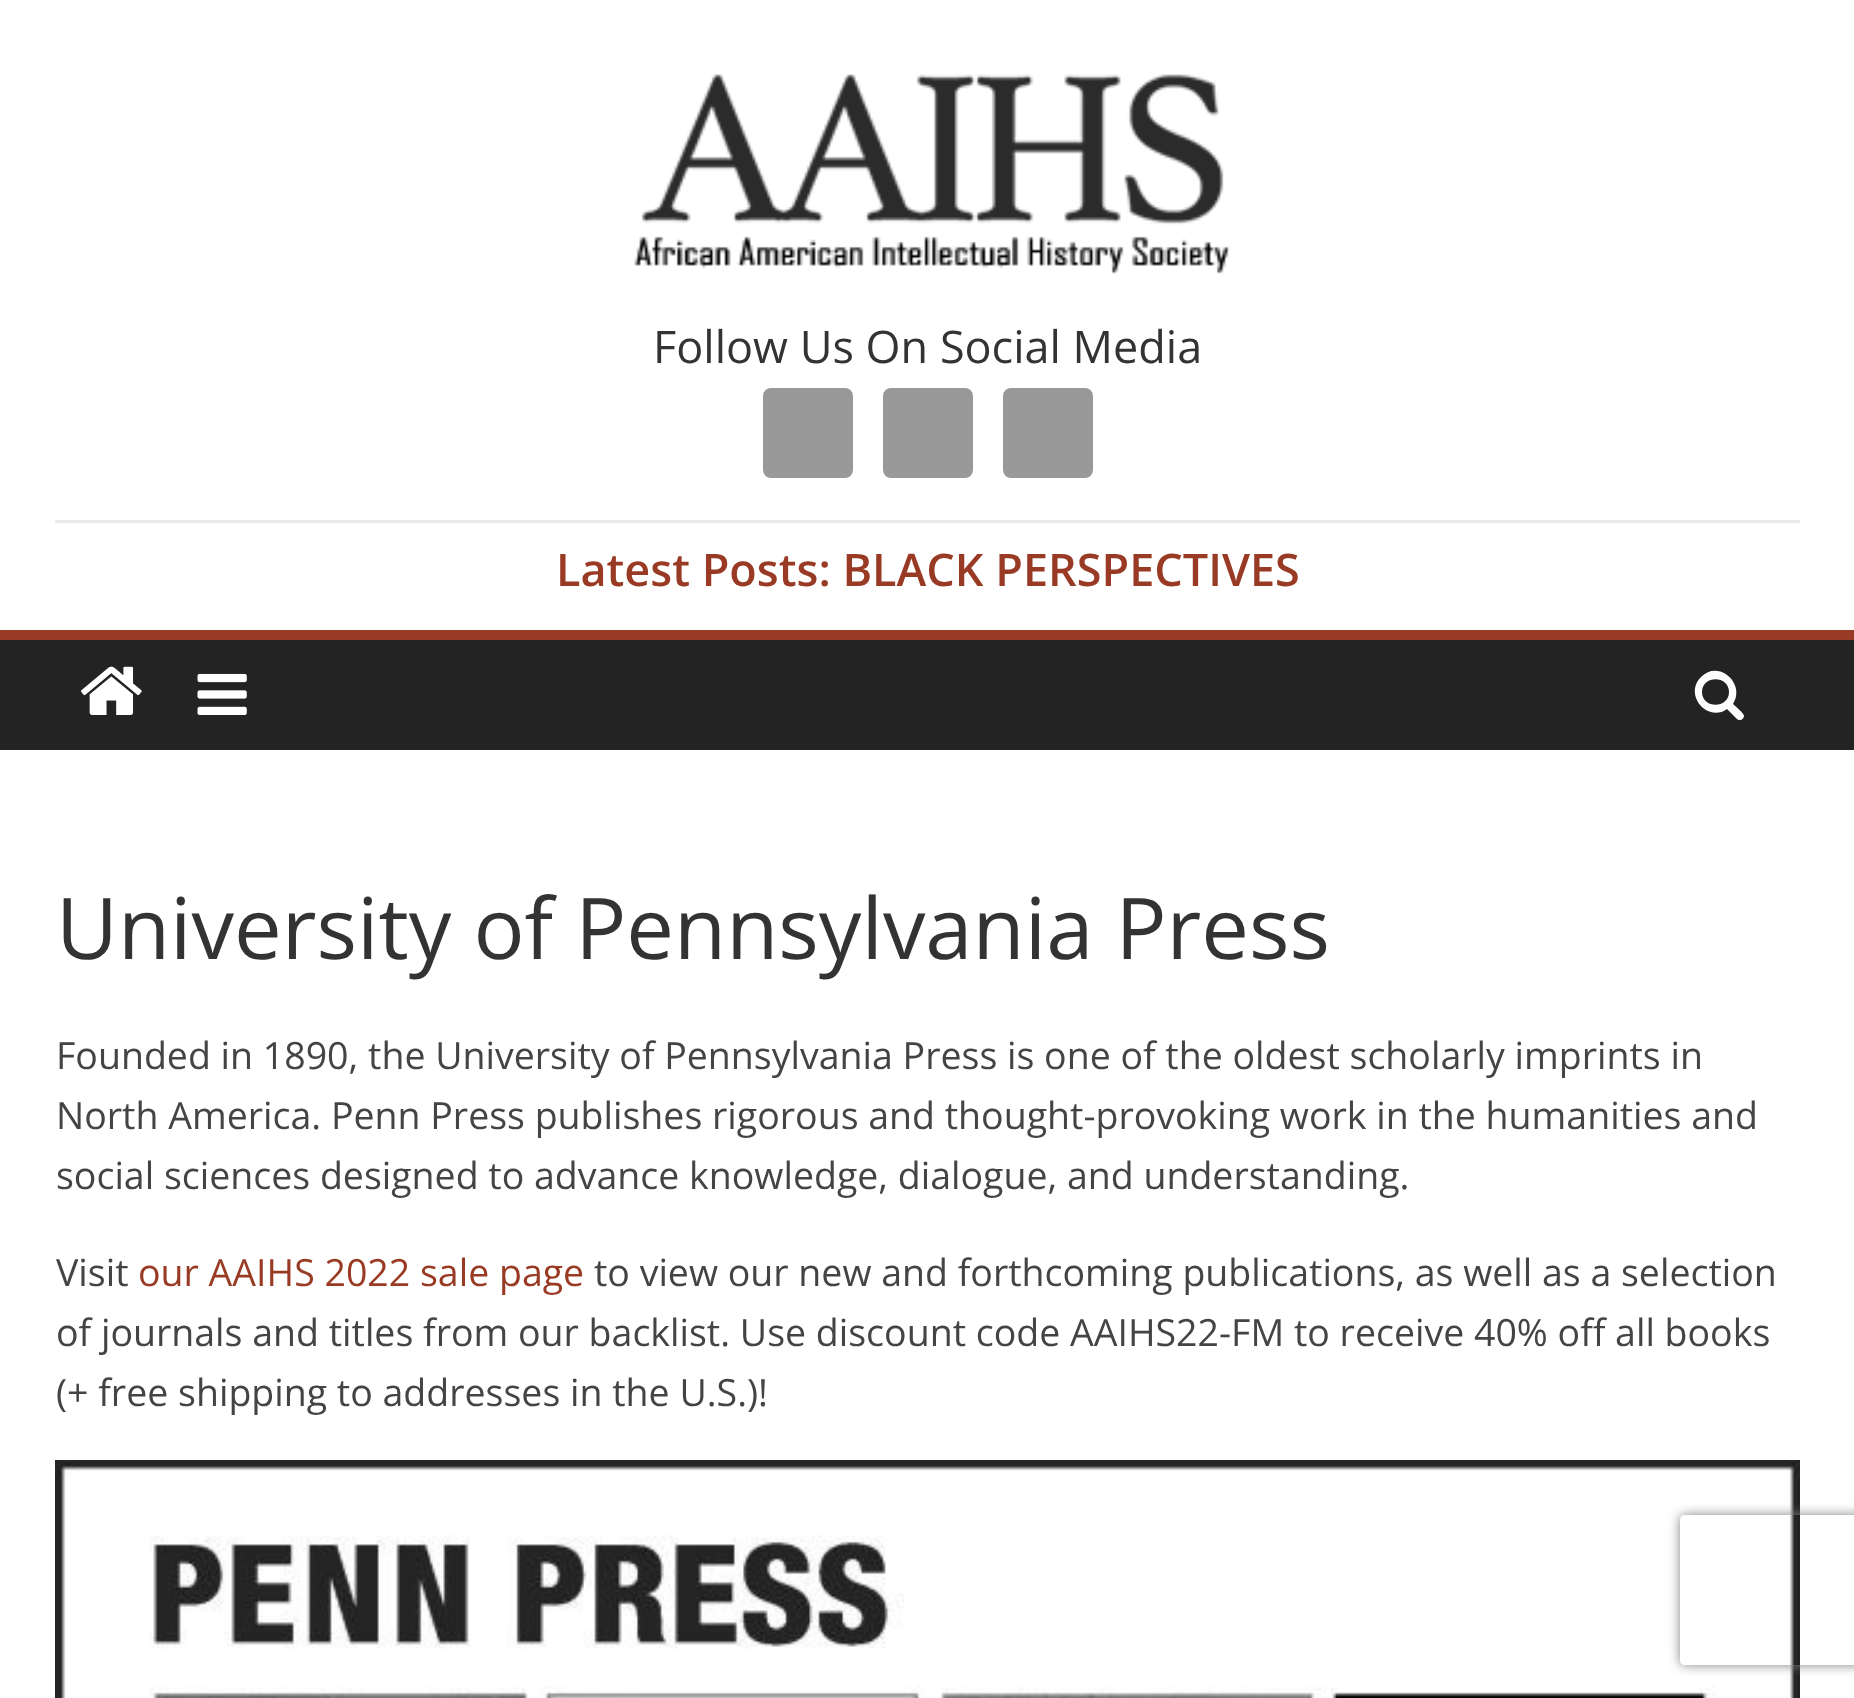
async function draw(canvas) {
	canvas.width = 1854;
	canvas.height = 1698;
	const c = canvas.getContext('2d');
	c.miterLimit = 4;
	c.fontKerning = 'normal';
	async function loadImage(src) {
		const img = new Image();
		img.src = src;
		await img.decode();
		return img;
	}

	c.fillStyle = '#fff';
	c.fillRect(0, 0, 1854, 1698);
	c.drawImage(await loadImage('img1.png'), 634, 74, 597, 200);
	c.font = '45px Open Sans';
	c.fillStyle = '#333';
	c.fillText('Follow Us On Social Media', 653, 363);
	c.fillStyle = '#999';
	c.beginPath();
	c.roundRect(763, 388, 90, 90, 8);
	c.fill();
	c.beginPath();
	c.roundRect(883, 388, 90, 90, 8);
	c.fill();
	c.beginPath();
	c.roundRect(1003, 388, 90, 90, 8);
	c.fill();
	c.fillStyle = '#eaeaea';
	c.fillRect(55, 520, 1745, 3);
	c.font = '600 45px Open Sans';
	c.fillStyle = '#993b24';
	c.fillText('Latest Posts: BLACK PERSPECTIVES', 556, 586);
	c.fillStyle = '#232323';
	c.fillRect(0, 640, 1854, 110);
	c.fillStyle = '#993b24';
	c.fillRect(0, 630, 1854, 10);
	c.drawImage(await loadImage('img2.png'), 81, 666, 61, 49);
	c.drawImage(await loadImage('img3.png'), 197, 673, 50, 42);
	c.fillStyle = '#fff';
	c.beginPath();
	c.moveTo(1729, 692);
	c.bezierCurveTo(1729, 709, 1702, 709, 1702, 692);
	c.bezierCurveTo(1702, 675, 1729, 675, 1729, 692);
	c.closePath();
	c.moveTo(1744, 716);
	c.bezierCurveTo(1744, 713, 1735, 706, 1733, 704);
	c.bezierCurveTo(1746, 684, 1719, 659, 1701, 677);
	c.bezierCurveTo(1683, 695, 1708, 723, 1727, 709);
	c.lineTo(1737, 719);
	c.bezierCurveTo(1738, 720, 1739, 720, 1740, 720);
	c.bezierCurveTo(1742, 720, 1744, 718, 1744, 716);
	c.closePath();
	c.fill();
	c.font = '85px Open Sans';
	c.fillStyle = '#333';
	c.fillText('University of Pennsylvania Press', 56, 959);
	c.font = '37.5px Open Sans';
	c.fillStyle = '#444';
	for (const [text, x, y] of [
		['Founded in 1890, the University of Pennsylvania Press is one of the oldest scholarly imprints in', 56, 1069],
		['North America. Penn Press publishes rigorous and thought-provoking work in the humanities and', 56, 1129],
		['social sciences designed to advance knowledge, dialogue, and understanding.', 56, 1189],
		['Visit', 56, 1286],
	]) {
		c.fillText(text, x, y);
	}
	c.fillStyle = '#993b24';
	c.fillText('our AAIHS 2022 sale page', 138, 1286);
	c.fillStyle = '#444';
	for (const [text, x, y] of [
		['to view our new and forthcoming publications, as well as a selection', 594, 1286],
		['of journals and titles from our backlist. Use discount code AAIHS22-FM to receive 40% off all books', 56, 1346],
		['(+ free shipping to addresses in the U.S.)!', 56, 1406],
	]) {
		c.fillText(text, x, y);
	}
	c.drawImage(await loadImage('img4.png'), 55, 1460, 1745, 238);
	c.save();
	c.beginPath();
	c.moveTo(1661, 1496);
	c.lineTo(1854, 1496);
	c.lineTo(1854, 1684);
	c.lineTo(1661, 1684);
	c.closePath();
	c.moveTo(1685, 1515);
	c.lineTo(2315, 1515);
	c.bezierCurveTo(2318, 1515, 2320, 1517, 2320, 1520);
	c.lineTo(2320, 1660);
	c.bezierCurveTo(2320, 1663, 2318, 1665, 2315, 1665);
	c.lineTo(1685, 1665);
	c.bezierCurveTo(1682, 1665, 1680, 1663, 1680, 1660);
	c.lineTo(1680, 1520);
	c.bezierCurveTo(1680, 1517, 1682, 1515, 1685, 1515);
	c.closePath();
	c.clip('evenodd');
	c.fillStyle = '#808080';
	c.filter = 'blur(6px)';
	c.beginPath();
	c.roundRect(1680, 1515, 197, 150, 5);
	c.fill();
	c.filter = 'none';
	c.restore();
}

draw(document.querySelector('canvas'));
